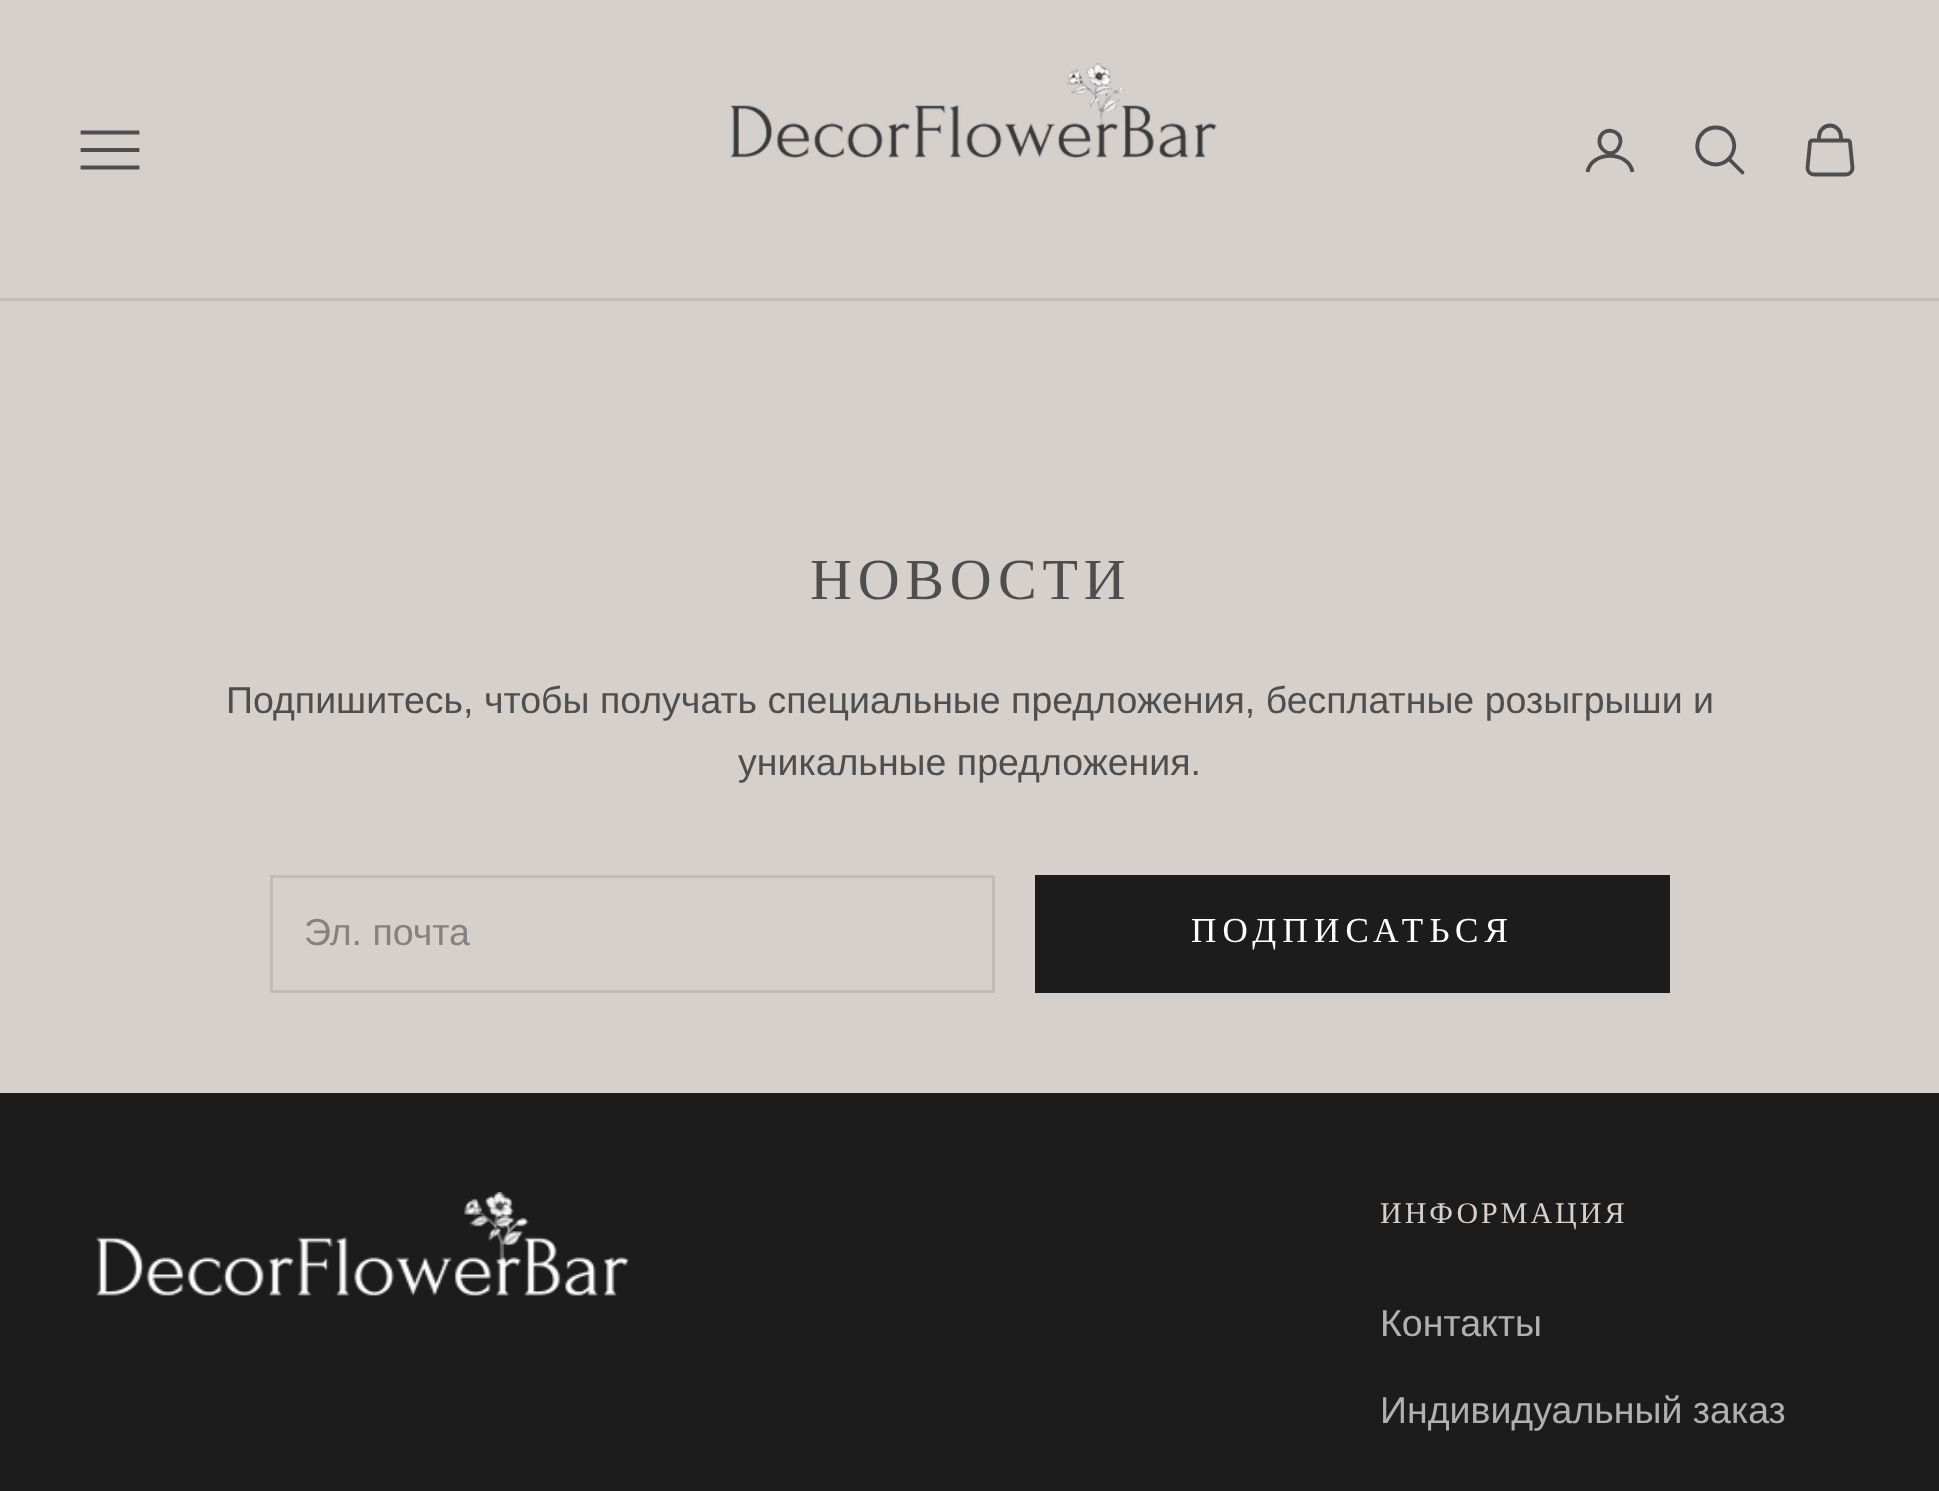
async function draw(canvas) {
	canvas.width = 1939;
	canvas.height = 1491;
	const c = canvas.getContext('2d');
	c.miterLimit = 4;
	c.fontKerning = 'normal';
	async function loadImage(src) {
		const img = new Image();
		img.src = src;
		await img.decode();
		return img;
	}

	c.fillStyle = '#d6d0cc';
	c.fillRect(0, 0, 1939, 1491);
	c.fillStyle = '#c2bdb9';
	c.fillRect(0, 298, 1939, 3);
	c.beginPath();
	c.moveTo(82.5, 167.5);
	c.lineTo(137.5, 167.5);
	c.moveTo(82.5, 150);
	c.lineTo(137.5, 150);
	c.moveTo(82.5, 132.5);
	c.lineTo(137.5, 132.5);
	c.strokeStyle = '#4e4e4e';
	c.lineWidth = 3.8;
	c.lineCap = 'square';
	c.stroke();
	c.drawImage(await loadImage('img1.png'), 730, 63, 487, 96);
	c.beginPath();
	c.moveTo(1620.5, 142);
	c.bezierCurveTo(1620, 145, 1619, 147.5, 1617, 150);
	c.bezierCurveTo(1609, 158, 1598.5, 149, 1599.5, 139.5);
	c.bezierCurveTo(1601.5, 126.5, 1621.5, 128.5, 1620.5, 142);
	c.closePath();
	c.lineCap = 'round';
	c.lineJoin = 'round';
	c.stroke();
	c.beginPath();
	c.moveTo(1587.5, 172);
	c.bezierCurveTo(1591.5, 150.5, 1628.5, 150.5, 1632.5, 172);
	c.lineCap = 'butt';
	c.lineJoin = 'miter';
	c.stroke();
	c.beginPath();
	c.moveTo(1716, 127.5);
	c.bezierCurveTo(1697, 127.5, 1690, 152.5, 1706.5, 162);
	c.bezierCurveTo(1709.5, 163.5, 1712.5, 164.5, 1716, 164.5);
	c.bezierCurveTo(1734, 163.5, 1741, 141, 1726, 130.5);
	c.bezierCurveTo(1723, 128.5, 1719.5, 127.5, 1716, 127.5);
	c.closePath();
	c.stroke();
	c.beginPath();
	c.moveTo(1729.5, 159.5);
	c.lineTo(1742.5, 172.5);
	c.lineCap = 'round';
	c.stroke();
	c.beginPath();
	c.moveTo(1812, 140.5);
	c.bezierCurveTo(1811, 140.5, 1810, 141.5, 1810, 142.5);
	c.lineTo(1807.5, 168);
	c.bezierCurveTo(1807.5, 171.5, 1810.5, 174.5, 1814, 174.5);
	c.lineTo(1846, 174.5);
	c.bezierCurveTo(1849.5, 174.5, 1852.5, 171.5, 1852.5, 168);
	c.lineTo(1850, 142.5);
	c.bezierCurveTo(1850, 141.5, 1849, 140.5, 1848, 140.5);
	c.closePath();
	c.moveTo(1819, 140.5);
	c.lineTo(1819, 137);
	c.bezierCurveTo(1819, 130.5, 1824, 125.5, 1830, 125.5);
	c.bezierCurveTo(1836, 125.5, 1841, 130.5, 1841, 137);
	c.lineTo(1841, 140.5);
	c.lineJoin = 'round';
	c.stroke();
	c.letterSpacing = '5.75px';
	c.font = '58px Liberation Serif';
	c.fillStyle = '#4e4e4e';
	c.fillText('НОВОСТИ', 810, 599);
	c.letterSpacing = '0px';
	c.font = '37.5px Liberation Sans';
	c.fillText('Подпишитесь, чтобы получать специальные предложения, бесплатные розыгрыши и', 226, 713);
	c.fillText('уникальные предложения.', 738, 775);
	c.strokeStyle = '#c2bcb9';
	c.lineWidth = 3;
	c.lineJoin = 'miter';
	c.strokeRect(271.5, 876.5, 722, 115);
	c.fillStyle = '#848280';
	c.fillText('Эл. почта', 304, 945);
	c.fillStyle = '#1c1c1c';
	c.beginPath();
	c.rect(1036.5, 876.5, 632, 115);
	c.fill();
	c.strokeStyle = '#1c1c1c';
	c.stroke();
	c.letterSpacing = '6.25px';
	c.font = '35px Liberation Serif';
	c.fillStyle = '#fff';
	c.fillText('ПОДПИСАТЬСЯ', 1191, 942);
	c.fillStyle = '#1c1c1c';
	c.fillRect(0, 1093, 1939, 398);
	c.drawImage(await loadImage('img2.png'), 96, 1192, 534, 104);
	c.letterSpacing = '3px';
	c.font = '30px Liberation Serif';
	c.fillStyle = '#d6d0cc';
	c.fillText('ИНФОРМАЦИЯ', 1380, 1223);
	c.letterSpacing = '0px';
	c.font = '37.5px Liberation Sans';
	c.fillStyle = '#b0b0b0';
	c.fillText('Контакты', 1380, 1336);
	c.fillText('Индивидуальный заказ', 1380, 1423);
}

draw(document.querySelector('canvas'));
